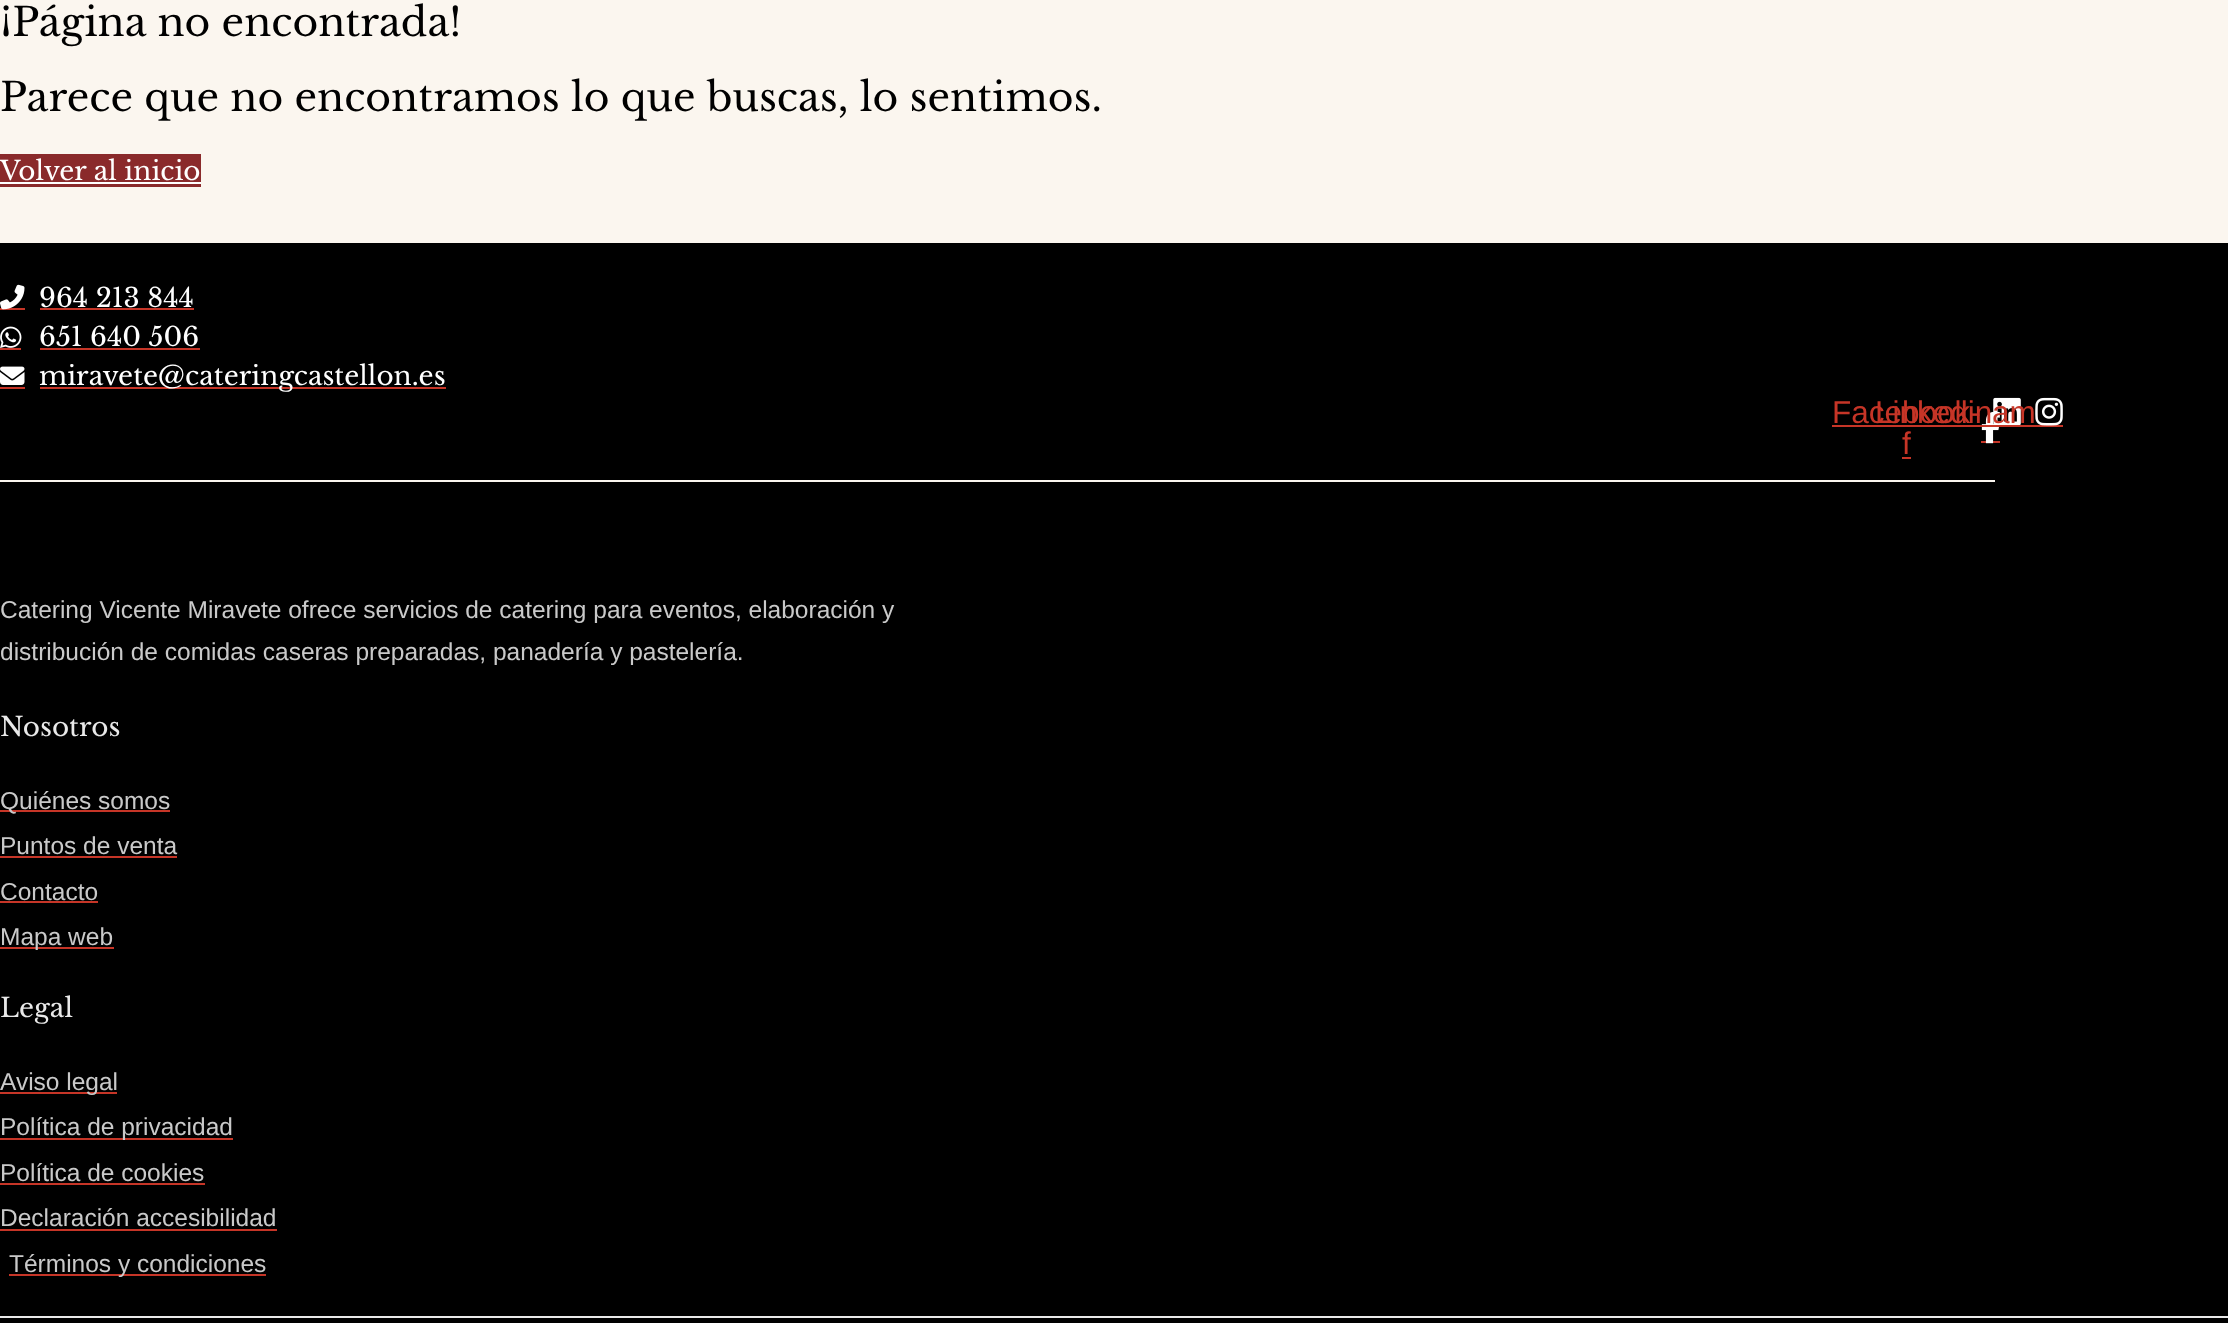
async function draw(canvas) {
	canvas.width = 2228;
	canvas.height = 1323;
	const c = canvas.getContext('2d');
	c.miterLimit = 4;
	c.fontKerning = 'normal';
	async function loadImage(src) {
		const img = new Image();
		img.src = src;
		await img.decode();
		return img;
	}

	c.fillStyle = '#fbf6ef';
	c.fillRect(0, 0, 2228, 1323);
	c.font = '39.4px Libre Baskerville';
	c.fillStyle = '#000';
	c.fillText('¡Página no encontrada!', 0, 36);
	c.fillText('Parece que no encontramos lo que buscas, lo sentimos.', 0, 111);
	c.fillStyle = '#8a2a2b';
	c.fillRect(0, 154, 201, 33);
	c.font = '26.25px Libre Baskerville';
	c.fillStyle = '#fff';
	c.fillText('Volver al inicio', 0, 180);
	for (const [x, y, w, h, color] of [
		[0, 182, 201, 2, '#fff'],
		[0, 243, 2228, 1073, '#000'],
		[0, 308, 25, 2, '#c63527'],
	]) {
		c.fillStyle = color;
		c.fillRect(x, y, w, h);
	}
	c.drawImage(await loadImage('img1.png'), 0, 284, 25, 26);
	c.fillStyle = '#fff';
	c.fillText('964 213 844', 39, 307);
	c.fillStyle = '#c63527';
	c.fillRect(40, 308, 154, 2);
	c.drawImage(await loadImage('img2.png'), 0, 326, 22, 22);
	c.fillRect(0, 348, 21, 2);
	c.fillStyle = '#fff';
	c.fillText('651 640 506', 39, 346);
	c.fillStyle = '#c63527';
	c.fillRect(40, 348, 160, 2);
	c.drawImage(await loadImage('img3.png'), 0, 366, 25, 19);
	c.fillRect(0, 387, 25, 2);
	c.fillRect(40, 387, 406, 2);
	c.fillStyle = '#fff';
	c.fillText('miravete@cateringcastellon.es', 39, 385);
	c.font = '31.5px Liberation Sans';
	c.fillStyle = '#c63527';
	c.fillText('Facebook-', 1832, 423);
	c.fillRect(1832, 425, 63, 2);
	c.fillText('f', 1902, 454);
	c.fillRect(1902, 457, 9, 2);
	c.fillRect(1981, 441, 19, 2);
	c.drawImage(await loadImage('img4.png'), 1981, 411, 19, 33);
	c.fillText('Linkedin', 1875, 423);
	c.drawImage(await loadImage('img5.png'), 1993, 397, 28, 28);
	c.fillText('am', 1992, 423);
	c.fillRect(1895, 425, 168, 2);
	c.drawImage(await loadImage('img6.png'), 2035, 397, 28, 29);
	c.fillStyle = '#fbf6ef';
	c.fillRect(0, 480, 1995, 2);
	c.font = '24.5px Liberation Sans';
	c.fillStyle = '#c9c9c9';
	c.fillText('Catering Vicente Miravete ofrece servicios de catering para eventos, elaboración y', 0, 618);
	c.fillText('distribución de comidas caseras preparadas, panadería y pastelería.', 0, 660);
	c.font = '26.25px Libre Baskerville';
	c.fillStyle = '#e9e9e9';
	c.fillText('Nosotros', 0, 736);
	c.fillStyle = '#c63527';
	c.fillRect(0, 810, 170, 2);
	c.font = '24.5px Liberation Sans';
	c.fillStyle = '#c9c9c9';
	c.fillText('Quiénes somos', 0, 809);
	c.fillText('Puntos de venta', 0, 854);
	c.fillStyle = '#c63527';
	c.fillRect(0, 856, 177, 2);
	c.fillStyle = '#c9c9c9';
	c.fillText('Contacto', 0, 900);
	c.fillStyle = '#c63527';
	c.fillRect(0, 901, 98, 2);
	c.fillRect(0, 947, 114, 2);
	c.fillStyle = '#c9c9c9';
	c.fillText('Mapa web', 0, 945);
	c.font = '26.25px Libre Baskerville';
	c.fillStyle = '#e9e9e9';
	c.fillText('Legal', 0, 1017);
	c.fillStyle = '#c63527';
	c.fillRect(0, 1092, 117, 2);
	c.font = '24.5px Liberation Sans';
	c.fillStyle = '#c9c9c9';
	c.fillText('Aviso legal', 0, 1090);
	c.fillStyle = '#c63527';
	c.fillRect(0, 1138, 233, 2);
	c.fillStyle = '#c9c9c9';
	c.fillText('Política de privacidad', 0, 1135);
	c.fillText('Política de cookies', 0, 1181);
	c.fillStyle = '#c63527';
	c.fillRect(0, 1183, 205, 2);
	c.fillStyle = '#c9c9c9';
	c.fillText('Declaración accesibilidad', 0, 1226);
	c.fillStyle = '#c63527';
	c.fillRect(0, 1229, 277, 2);
	c.fillRect(9, 1274, 257, 2);
	c.fillStyle = '#c9c9c9';
	c.fillText('Términos y condiciones', 9, 1272);
	c.fillStyle = '#000';
	c.fillRect(0, 1318, 2228, 5);
	c.fillStyle = '#e9e9e9';
	c.fillRect(0, 1316, 2228, 2);
}

draw(document.querySelector('canvas'));
